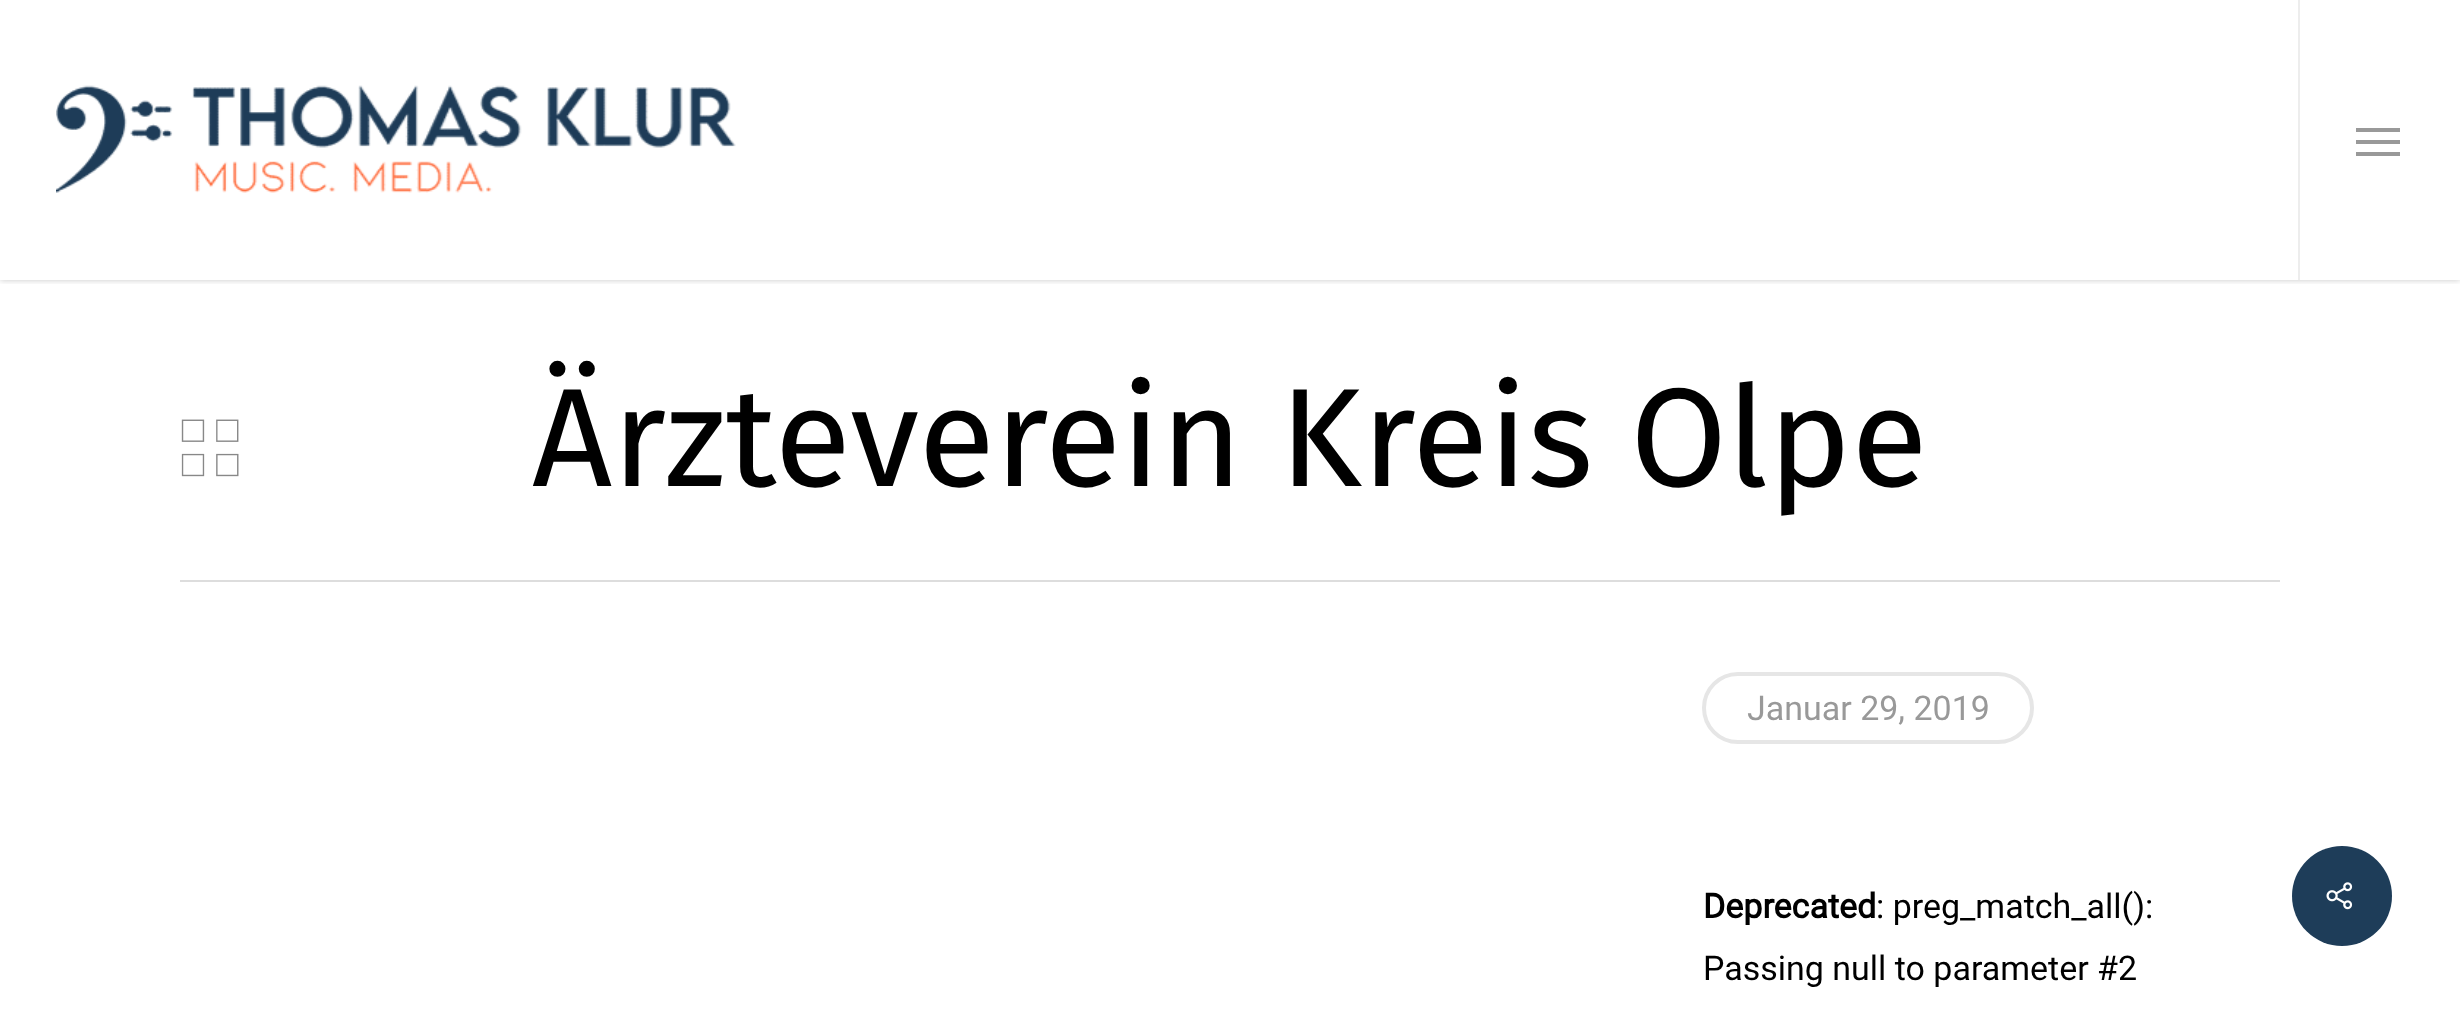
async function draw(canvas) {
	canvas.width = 2460;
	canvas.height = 1013;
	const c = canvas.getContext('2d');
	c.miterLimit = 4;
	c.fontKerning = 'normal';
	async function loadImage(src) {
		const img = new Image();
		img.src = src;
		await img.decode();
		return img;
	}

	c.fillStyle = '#fff';
	c.fillRect(0, 0, 2460, 1013);
	c.save();
	c.beginPath();
	c.rect(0, 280, 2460, 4);
	c.clip();
	c.fillStyle = '#00000038';
	c.filter = 'blur(3px)';
	c.beginPath();
	c.rect(0, 0, 2460, 280);
	c.fill();
	c.filter = 'none';
	c.restore();
	c.drawImage(await loadImage('img1.png'), 56, 85, 680, 108);
	for (const [x, y, w, h, color] of [
		[2298, 0, 2, 280, '#ededed'],
		[2356, 128, 44, 4, '#999'],
		[2356, 152, 44, 4, '#999'],
		[2356, 140, 44, 4, '#999'],
		[180, 580, 2100, 2, '#ddd'],
	]) {
		c.fillStyle = color;
		c.fillRect(x, y, w, h);
	}
	c.drawImage(await loadImage('img2.png'), 181, 419, 58, 58);
	c.font = '140px Fira Sans';
	c.fillStyle = '#000';
	c.fillText('Ärzteverein Kreis Olpe', 532, 486);
	c.beginPath();
	c.roundRect(1704, 674, 328, 68, 34);
	c.strokeStyle = '#e6e6e6';
	c.lineWidth = 4;
	c.stroke();
	c.font = '34px Roboto';
	c.fillStyle = '#999';
	c.fillText('Januar 29, 2019', 1747, 720);
	c.font = 'bold 34px Roboto';
	c.fillStyle = '#000';
	c.fillText('Deprecated', 1703, 918);
	c.font = '34px Roboto';
	c.fillText(': preg_match_all():', 1876, 918);
	c.fillText('Passing null to parameter #2', 1703, 980);
	c.fillStyle = '#1e3d59';
	c.beginPath();
	c.arc(2342, 896, 50, 0, 2 * Math.PI);
	c.fill();
	c.drawImage(await loadImage('img3.png'), 2326, 882, 27, 28);
}

draw(document.querySelector('canvas'));
